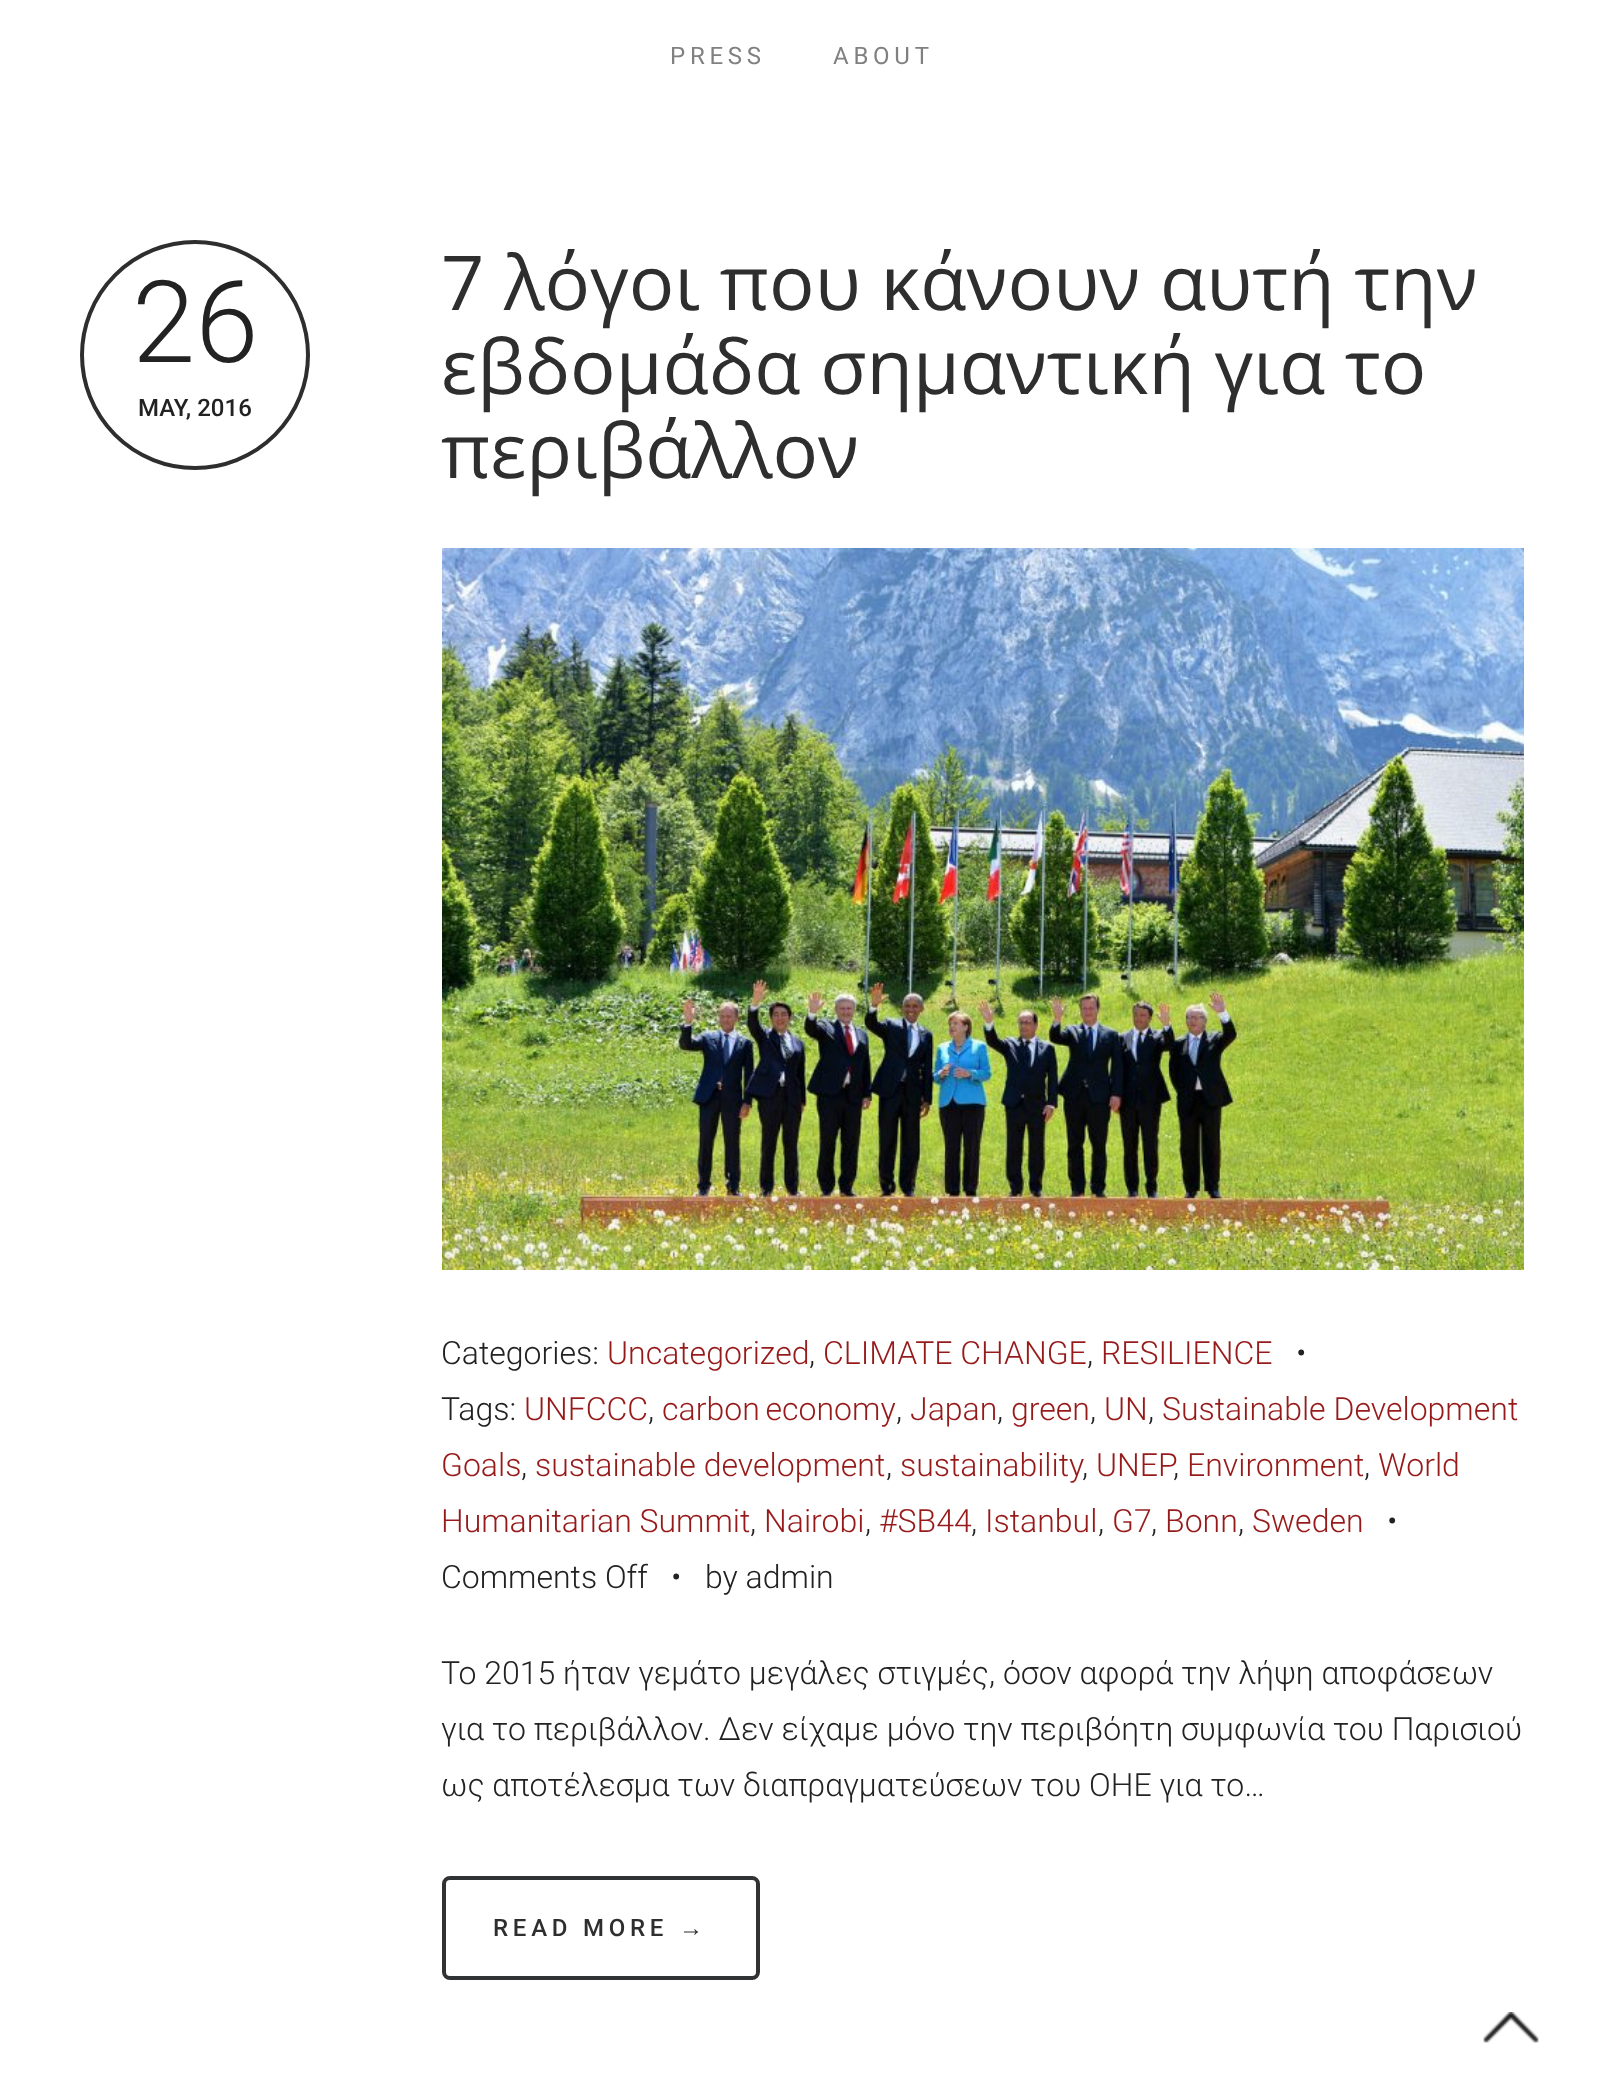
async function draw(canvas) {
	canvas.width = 1604;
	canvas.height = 2076;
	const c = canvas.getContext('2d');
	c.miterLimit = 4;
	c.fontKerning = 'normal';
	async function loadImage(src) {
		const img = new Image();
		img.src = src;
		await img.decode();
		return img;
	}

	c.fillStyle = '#fff';
	c.fillRect(0, 0, 1604, 2076);
	c.letterSpacing = '4.75px';
	c.font = '24px Roboto';
	c.fillStyle = '#808080';
	c.fillText('PRESS', 670, 64);
	c.fillText('ABOUT', 833, 64);
	c.beginPath();
	c.arc(195, 355, 113, 0, 2 * Math.PI);
	c.strokeStyle = '#2e2e2e';
	c.lineWidth = 4;
	c.stroke();
	c.letterSpacing = '0px';
	c.font = '300 114px Roboto';
	c.fillStyle = '#222';
	c.fillText('26', 132, 362);
	c.font = '500 24px Roboto';
	c.fillText('MAY, 2016', 138, 416);
	c.font = '75.75px Open Sans';
	c.fillStyle = '#2e2e2e';
	for (const [text, x, y] of [
		['7 λόγοι που κάνουν αυτή την', 441, 310],
		['εβδομάδα σημαντική για το', 441, 394],
		['περιβάλλον', 441, 478],
	]) {
		c.fillText(text, x, y);
	}
	c.drawImage(await loadImage('img1.png'), 442, 548, 1082, 722);
	c.font = '300 32px Roboto';
	c.fillStyle = '#222';
	c.fillText('Categories:', 441, 1364);
	c.fillStyle = '#971a1a';
	for (const [text, x, y] of [
		['Uncategorized', 607, 1364],
		['CLIMATE CHANGE', 823, 1364],
		['RESILIENCE', 1101, 1364],
	]) {
		c.fillText(text, x, y);
	}
	c.fillStyle = '#222';
	for (const [text, x, y] of [
		['•', 1296, 1364],
		[',', 809, 1364],
		[',', 1087, 1364],
		['Tags:', 441, 1420],
	]) {
		c.fillText(text, x, y);
	}
	c.fillStyle = '#971a1a';
	c.fillText('UNFCCC', 524, 1420);
	c.fillStyle = '#222';
	c.fillText(',', 648, 1420);
	c.wordSpacing = '-2px';
	c.fillStyle = '#971a1a';
	c.fillText('carbon economy', 662, 1420);
	c.wordSpacing = '0px';
	c.fillStyle = '#222';
	c.fillText(',', 896, 1420);
	c.fillStyle = '#971a1a';
	c.fillText('Japan', 910, 1420);
	c.fillStyle = '#222';
	c.fillText(',', 997, 1420);
	c.fillStyle = '#971a1a';
	c.fillText('green', 1011, 1420);
	c.fillStyle = '#222';
	c.fillText(',', 1090, 1420);
	c.fillStyle = '#971a1a';
	c.fillText('UN', 1104, 1420);
	c.fillStyle = '#222';
	c.fillText(',', 1148, 1420);
	c.fillStyle = '#971a1a';
	c.fillText('Sustainable Development', 1162, 1420);
	c.fillText('Goals', 441, 1476);
	c.fillStyle = '#222';
	c.fillText(',', 521, 1476);
	c.fillStyle = '#971a1a';
	c.fillText('sustainable development', 535, 1476);
	c.fillStyle = '#222';
	c.fillText(',', 886, 1476);
	c.fillStyle = '#971a1a';
	c.fillText('sustainability', 900, 1476);
	c.fillStyle = '#222';
	c.fillText(',', 1082, 1476);
	c.fillStyle = '#971a1a';
	for (const [text, x, y] of [
		['UNEP', 1096, 1476],
		['Environment', 1187, 1476],
		['World', 1378, 1476],
	]) {
		c.fillText(text, x, y);
	}
	c.fillStyle = '#222';
	c.fillText(',', 1173, 1476);
	c.fillText(',', 1364, 1476);
	c.fillStyle = '#971a1a';
	for (const [text, x, y] of [
		['Humanitarian Summit', 441, 1532],
		['Nairobi', 764, 1532],
		['#SB44', 879, 1532],
		['Istanbul', 985, 1532],
		['G7', 1112, 1532],
		['Bonn', 1165, 1532],
		['Sweden', 1252, 1532],
	]) {
		c.fillText(text, x, y);
	}
	c.fillStyle = '#222';
	for (const [text, x, y] of [
		['•', 1387, 1532],
		[',', 750, 1532],
		[',', 865, 1532],
		[',', 971, 1532],
		[',', 1098, 1532],
		[',', 1151, 1532],
		[',', 1238, 1532],
		['Comments Off', 441, 1588],
		['•', 671, 1588],
		['by admin', 705, 1588],
		['Το 2015 ήταν γεμάτο μεγάλες στιγμές, όσον αφορά την λήψη αποφάσεων', 441, 1684],
		['για το περιβάλλον. Δεν είχαμε μόνο την περιβόητη συμφωνία του Παρισιού', 441, 1740],
		['ως αποτέλεσμα των διαπραγματεύσεων του ΟΗΕ για το…', 441, 1796],
	]) {
		c.fillText(text, x, y);
	}
	c.beginPath();
	c.roundRect(444, 1878, 314, 100, 6);
	c.strokeStyle = '#313233';
	c.stroke();
	c.letterSpacing = '4.75px';
	c.font = '500 24px Roboto';
	c.fillStyle = '#2e2e2e';
	c.fillText('READ MORE', 493, 1936);
	c.font = '24px Liberation Sans';
	c.fillText('→', 679, 1936);
	c.drawImage(await loadImage('img2.png'), 1483, 2012, 56, 31);
}

draw(document.querySelector('canvas'));
